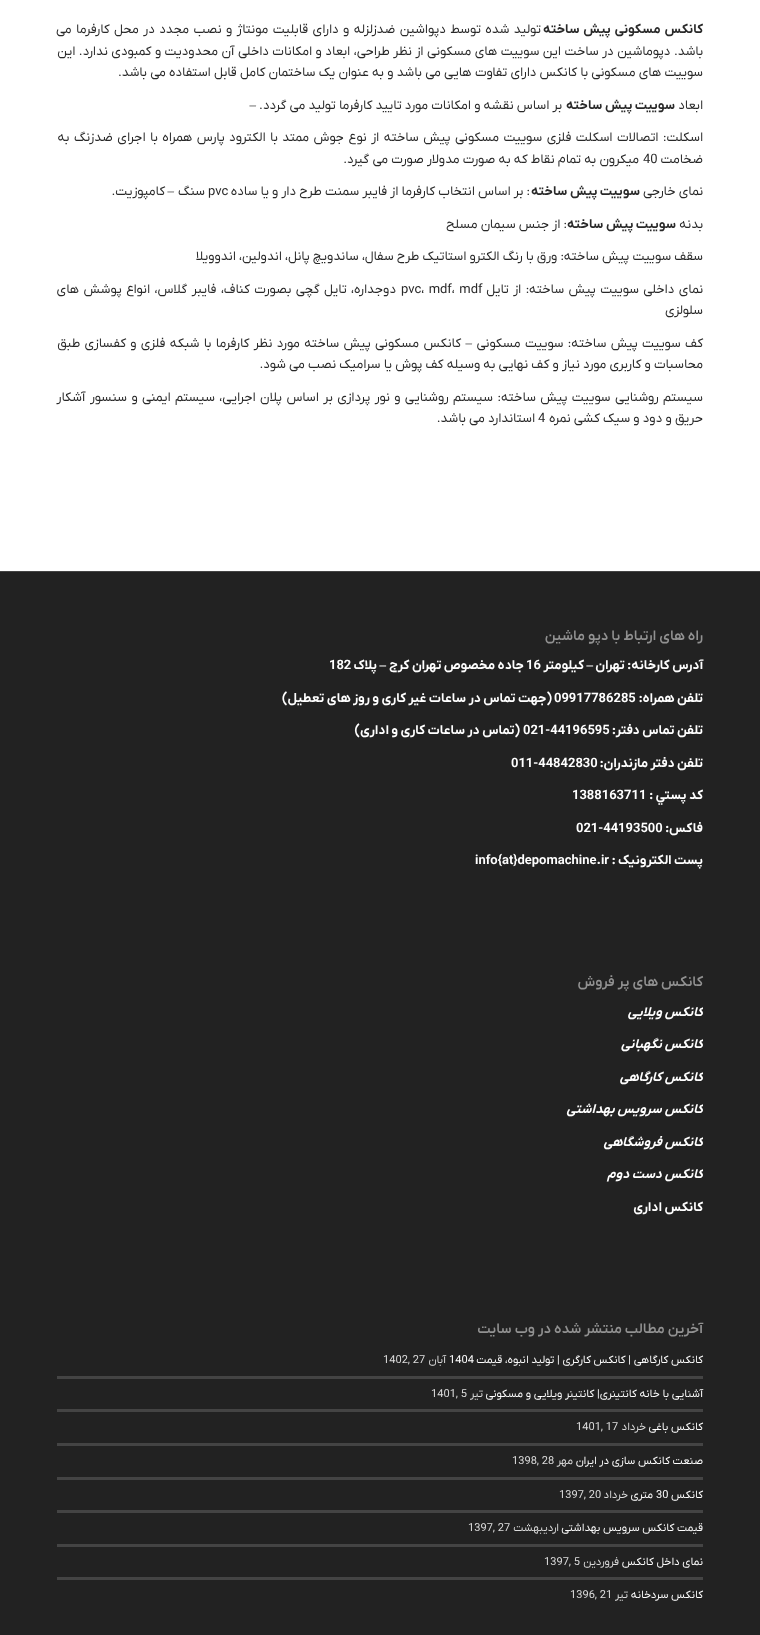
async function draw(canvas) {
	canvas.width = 760;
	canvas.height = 1635;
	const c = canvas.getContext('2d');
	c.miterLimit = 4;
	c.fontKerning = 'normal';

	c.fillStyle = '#fff';
	c.fillRect(0, 0, 760, 1635);
	c.wordSpacing = '1.25px';
	c.direction = 'rtl';
	c.font = 'bold 13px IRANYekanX';
	c.fillStyle = '#292929';
	c.fillText('کانکس مسکونی پیش ساخته', 703, 33);
	c.font = '13px IRANYekanX';
	c.fillText('تولید شده توسط دپواشین ضدزلزله و دارای قابلیت مونتاژ و نصب مجدد در محل کارفرما می', 541, 33);
	c.wordSpacing = '0.3px';
	c.fillText('باشد. دپوماشین در ساخت این سوییت های مسکونی از نظر طراحی، ابعاد و امکانات داخلی آن محدودیت و کمبودی ندارد. این', 703, 55);
	c.wordSpacing = '0px';
	c.fillText('سوییت های مسکونی با کانکس دارای تفاوت هایی می باشد و به عنوان یک ساختمان کامل قابل استفاده می باشد.', 703, 76);
	c.fillText('ابعاد', 703, 109);
	c.font = 'bold 13px IRANYekanX';
	c.fillText('سوییت پیش ساخته', 675, 109);
	c.font = '13px IRANYekanX';
	c.fillText('بر اساس نقشه و امکانات مورد تایید کارفرما تولید می گردد.', 562, 109);
	c.font = '13px Liberation Serif';
	c.fillText('–', 256, 109);
	c.wordSpacing = '1.3px';
	c.font = '13px IRANYekanX';
	c.fillText('اسکلت: اتصالات اسکلت فلزی سوییت مسکونی پیش ساخته از نوع جوش ممتد با الکترود پارس همراه با اجرای ضدزنگ به', 703, 141);
	c.wordSpacing = '0px';
	c.fillText('ضخامت', 703, 163);
	c.direction = 'ltr';
	c.fillText('40', 643, 163);
	c.direction = 'rtl';
	c.fillText('میکرون به تمام نقاط که به صورت مدولار صورت می گیرد.', 639, 163);
	c.fillText('نمای خارجی', 703, 195);
	c.font = 'bold 13px IRANYekanX';
	c.fillText('سوییت پیش ساخته', 640, 195);
	c.font = '13px IRANYekanX';
	c.fillText(': بر اساس انتخاب کارفرما از فایبر سمنت طرح دار و یا ساده', 530, 195);
	c.direction = 'ltr';
	c.fillText('pvc', 208, 195);
	c.direction = 'rtl';
	c.fillText('سنگ', 205, 195);
	c.font = '13px Liberation Serif';
	c.fillText('–', 174, 195);
	c.font = '13px IRANYekanX';
	c.fillText('کامپوزیت.', 165, 195);
	c.fillText('بدنه', 703, 228);
	c.font = 'bold 13px IRANYekanX';
	c.fillText('سوییت پیش ساخته', 676, 228);
	c.font = '13px IRANYekanX';
	c.fillText(': از جنس سیمان مسلح', 567, 228);
	c.fillText('سقف سوییت پیش ساخته: ورق با رنگ الکترو استاتیک طرح سفال، ساندویچ پانل، اندولین، اندوویلا', 703, 260);
	c.wordSpacing = '1.25px';
	c.fillText('نمای داخلی سوییت پیش ساخته: از تایل', 703, 293);
	c.direction = 'ltr';
	c.fillText('pvc، mdf، mdf', 401, 293);
	c.direction = 'rtl';
	c.fillText('دوجداره، تایل گچی بصورت کناف، فایبر گلاس، انواع پوشش های', 396, 293);
	c.wordSpacing = '0px';
	c.fillText('سلولزی', 703, 314);
	c.wordSpacing = '1.1px';
	c.fillText('کف سوییت پیش ساخته: سوییت مسکونی', 703, 347);
	c.wordSpacing = '0px';
	c.font = '13px Liberation Serif';
	c.fillText('–', 472, 347);
	c.wordSpacing = '1.1px';
	c.font = '13px IRANYekanX';
	c.fillText('کانکس مسکونی پیش ساخته مورد نظر کارفرما با شبکه فلزی و کفسازی طبق', 461, 347);
	c.wordSpacing = '0px';
	c.fillText('محاسبات و کاربری مورد نیاز و کف نهایی به وسیله کف پوش یا سرامیک نصب می شود.', 703, 368);
	c.wordSpacing = '1.2px';
	c.fillText('سیستم روشنایی سوییت پیش ساخته: سیستم روشنایی و نور پردازی بر اساس پلان اجرایی، سیستم ایمنی و سنسور آشکار', 703, 401);
	c.wordSpacing = '0px';
	c.fillText('حریق و دود و سیک کشی نمره', 703, 422);
	c.direction = 'ltr';
	c.fillText('4', 538, 422);
	c.direction = 'rtl';
	c.fillText('استاندارد می باشد.', 535, 422);
	c.fillStyle = '#222';
	c.fillRect(0, 572, 760, 1063);
	c.fillStyle = '#444';
	c.fillRect(0, 571, 760, 1);
	c.font = '600 14.25px IRANYekanX';
	c.fillStyle = '#919191';
	c.fillText('راه های ارتباط با دپو ماشین', 703, 640);
	c.font = 'bold 13px IRANYekanX';
	c.fillStyle = '#fff';
	c.fillText('آدرس کارخانه: تهران', 703, 669);
	c.font = 'bold 13px Liberation Serif';
	c.fillText('–', 593, 669);
	c.font = 'bold 13px IRANYekanX';
	c.fillText('کیلومتر', 584, 669);
	c.direction = 'ltr';
	c.fillText('16', 526, 669);
	c.direction = 'rtl';
	c.fillText('جاده مخصوص تهران کرج', 524, 669);
	c.font = 'bold 13px Liberation Serif';
	c.fillText('–', 386, 669);
	c.font = 'bold 13px IRANYekanX';
	c.fillText('پلاک', 377, 669);
	c.direction = 'ltr';
	c.fillText('182', 329, 669);
	c.direction = 'rtl';
	c.fillText('تلفن همراه:', 703, 702);
	c.direction = 'ltr';
	c.fillText('09917786285', 554, 702);
	c.direction = 'rtl';
	c.fillText('(جهت تماس در ساعات غیر کاری و روز های تعطیل)', 552, 702);
	c.fillText('تلفن تماس دفتر:', 703, 734);
	c.direction = 'ltr';
	c.fillText('021-44196595', 523, 734);
	c.direction = 'rtl';
	c.fillText('(تماس در ساعات کاری و اداری)', 520, 734);
	c.fillText('تلفن دفتر مازندران:', 703, 767);
	c.direction = 'ltr';
	c.fillText('011-44842830', 511, 767);
	c.direction = 'rtl';
	c.fillText('كد پستي :', 703, 799);
	c.direction = 'ltr';
	c.fillText('1388163711', 572, 799);
	c.direction = 'rtl';
	c.fillText('فاكس:', 703, 832);
	c.direction = 'ltr';
	c.fillText('021-44193500', 576, 832);
	c.direction = 'rtl';
	c.fillText('پست الکترونیک :', 703, 864);
	c.direction = 'ltr';
	c.fillText('info{at}depomachine.ir', 475, 864);
	c.direction = 'rtl';
	c.font = '600 14.25px IRANYekanX';
	c.fillStyle = '#919191';
	c.fillText('کانکس های پر فروش', 703, 986);
	c.save();
	c.beginPath();
	c.rect(57, 963, 646, 266);
	c.clip();
	c.font = 'italic bold 13px IRANYekanX';
	c.fillStyle = '#fff';
	for (const [text, x, y] of [
		['کانکس ویلایی', 703, 1016],
		['کانکس نگهبانی', 703, 1048],
		['کانکس کارگاهی', 703, 1081],
		['کانکس سرویس بهداشتی', 703, 1113],
		['کانکس فروشگاهی', 703, 1146],
		['کانکس دست دوم', 703, 1178],
	]) {
		c.fillText(text, x, y);
	}
	c.restore();
	c.font = 'bold 13px IRANYekanX';
	c.fillStyle = '#fff';
	c.fillText('کانکس اداری', 703, 1211);
	c.font = '600 14.25px IRANYekanX';
	c.fillStyle = '#919191';
	c.fillText('آخرین مطالب منتشر شده در وب سایت', 703, 1333);
	c.font = '11.05px IRANYekanX';
	c.fillStyle = '#fff';
	c.fillText('کانکس کارگاهی | کانکس کارگری | تولید انبوه، قیمت', 703, 1363);
	c.direction = 'ltr';
	c.fillText('1404', 449, 1363);
	c.direction = 'rtl';
	c.fillStyle = '#ddd';
	c.fillText('آبان', 446, 1363);
	c.direction = 'ltr';
	c.fillText('1402, 27', 383, 1363);
	c.fillStyle = '#444';
	c.fillRect(57, 1376, 646, 3);
	c.direction = 'rtl';
	c.fillStyle = '#fff';
	c.fillText('آشنایی با خانه کانتینری| کانتینر ویلایی و مسکونی', 703, 1397);
	c.fillStyle = '#ddd';
	c.fillText('تیر', 483, 1397);
	c.direction = 'ltr';
	c.fillText('1401, 5', 431, 1397);
	c.fillStyle = '#444';
	c.fillRect(57, 1409, 646, 3);
	c.direction = 'rtl';
	c.fillStyle = '#fff';
	c.fillText('کانکس باغی', 703, 1430);
	c.fillStyle = '#ddd';
	c.fillText('خرداد', 646, 1430);
	c.direction = 'ltr';
	c.fillText('1401, 17', 576, 1430);
	c.fillStyle = '#444';
	c.fillRect(57, 1443, 646, 3);
	c.direction = 'rtl';
	c.fillStyle = '#fff';
	c.fillText('صنعت کانکس سازی در ایران', 703, 1464);
	c.fillStyle = '#ddd';
	c.fillText('مهر', 573, 1464);
	c.direction = 'ltr';
	c.fillText('1398, 28', 512, 1464);
	c.fillStyle = '#444';
	c.fillRect(57, 1477, 646, 3);
	c.direction = 'rtl';
	c.fillStyle = '#fff';
	c.fillText('کانکس', 703, 1498);
	c.direction = 'ltr';
	c.fillText('30', 656, 1498);
	c.direction = 'rtl';
	c.fillText('متری', 653, 1498);
	c.fillStyle = '#ddd';
	c.fillText('خرداد', 628, 1498);
	c.direction = 'ltr';
	c.fillText('1397, 20', 559, 1498);
	c.fillStyle = '#444';
	c.fillRect(57, 1510, 646, 3);
	c.direction = 'rtl';
	c.fillStyle = '#fff';
	c.fillText('قیمت کانکس سرویس بهداشتی', 703, 1531);
	c.fillStyle = '#ddd';
	c.fillText('اردیبهشت', 559, 1531);
	c.direction = 'ltr';
	c.fillText('1397, 27', 468, 1531);
	c.fillStyle = '#444';
	c.fillRect(57, 1544, 646, 3);
	c.direction = 'rtl';
	c.fillStyle = '#fff';
	c.fillText('نمای داخل کانکس', 703, 1565);
	c.fillStyle = '#ddd';
	c.fillText('فروردین', 619, 1565);
	c.direction = 'ltr';
	c.fillText('1397, 5', 544, 1565);
	c.fillStyle = '#444';
	c.fillRect(57, 1577, 646, 3);
	c.direction = 'rtl';
	c.fillStyle = '#fff';
	c.fillText('کانکس سردخانه', 703, 1598);
	c.fillStyle = '#ddd';
	c.fillText('تیر', 628, 1598);
	c.direction = 'ltr';
	c.fillText('1396, 21', 570, 1598);
}

draw(document.querySelector('canvas'));
